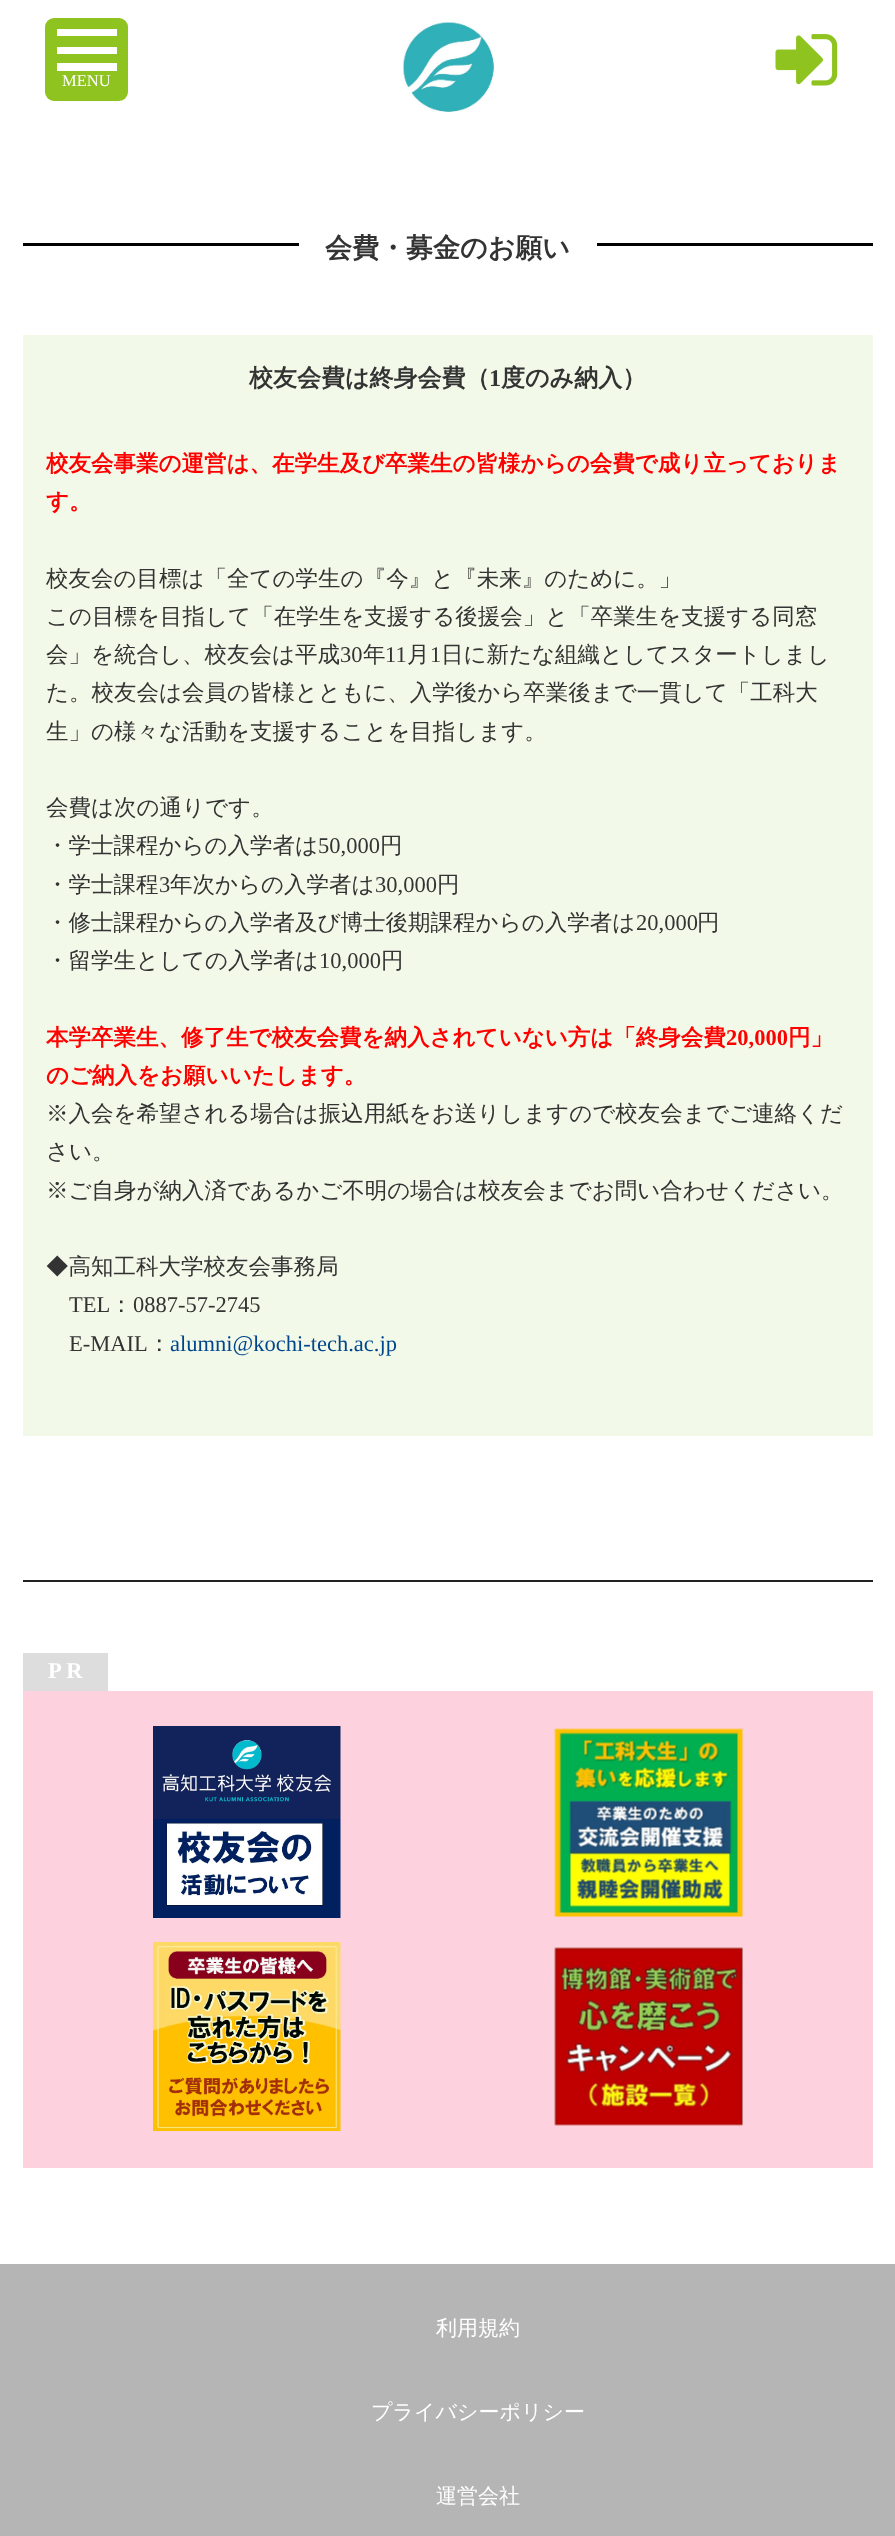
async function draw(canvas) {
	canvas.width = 895;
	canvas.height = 2536;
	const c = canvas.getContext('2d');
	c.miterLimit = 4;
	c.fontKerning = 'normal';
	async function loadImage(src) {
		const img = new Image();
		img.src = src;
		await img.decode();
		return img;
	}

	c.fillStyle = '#fff';
	c.fillRect(0, 0, 895, 2536);
	c.fillStyle = '#8fc31f';
	c.beginPath();
	c.roundRect(45, 18, 83, 83, 9);
	c.fill();
	for (const [x, y, w, h, color] of [
		[57, 29, 60, 7, '#fff'],
		[57, 47, 60, 7, '#fff'],
		[57, 63, 60, 8, '#fff'],
	]) {
		c.fillStyle = color;
		c.fillRect(x, y, w, h);
	}
	c.font = '16.5px Liberation Serif';
	c.fillText('MENU', 62, 86);
	c.drawImage(await loadImage('img1.png'), 403, 22, 91, 90);
	c.drawImage(await loadImage('img2.png'), 775, 34, 63, 52);
	c.fillStyle = '#000';
	c.fillRect(23, 243, 850, 3);
	c.fillStyle = '#fff';
	c.fillRect(299, 243, 298, 3);
	c.font = 'bold 27px WenQuanYi Zen Hei';
	c.fillStyle = '#333';
	c.fillText('会費・募金のお願い', 325, 257);
	c.fillStyle = '#f3f9e8';
	c.fillRect(23, 335, 850, 1101);
	c.font = 'bold 24px WenQuanYi Zen Hei';
	c.fillStyle = '#333';
	c.fillText('校友会費は終身会費（', 249, 386);
	c.font = 'bold 24px Liberation Serif';
	c.fillText('1', 489, 386);
	c.font = 'bold 24px WenQuanYi Zen Hei';
	c.fillText('度のみ納入）', 501, 386);
	c.font = 'bold 22.5px WenQuanYi Zen Hei';
	c.fillStyle = '#f00';
	c.fillText('校友会事業の運営は、在学生及び卒業生の皆様からの会費で成り立っておりま', 46, 471);
	c.fillText('す。', 46, 509);
	c.font = '500 22.5px WenQuanYi Zen Hei';
	c.fillStyle = '#333';
	for (const [text, x, y] of [
		['校友会の目標は「全ての学生の『今』と『未来』のために。」', 46, 586],
		['この目標を目指して「在学生を支援する後援会」と「卒業生を支援する同窓', 46, 624],
		['会」を統合し、校友会は平成', 46, 662],
	]) {
		c.fillText(text, x, y);
	}
	c.font = '22.5px Liberation Serif';
	c.fillText('30', 340, 662);
	c.font = '500 22.5px WenQuanYi Zen Hei';
	c.fillText('年', 363, 662);
	c.font = '22.5px Liberation Serif';
	c.fillText('11', 385, 662);
	c.font = '500 22.5px WenQuanYi Zen Hei';
	c.fillText('月', 407, 662);
	c.font = '22.5px Liberation Serif';
	c.fillText('1', 430, 662);
	c.font = '500 22.5px WenQuanYi Zen Hei';
	for (const [text, x, y] of [
		['日に新たな組織としてスタートしまし', 441, 662],
		['た。校友会は会員の皆様とともに、入学後から卒業後まで一貫して「工科大', 46, 700],
		['生」の様々な活動を支援することを目指します。', 46, 739],
		['会費は次の通りです。', 46, 815],
		['・学士課程からの入学者は', 46, 853],
	]) {
		c.fillText(text, x, y);
	}
	c.font = '22.5px Liberation Serif';
	c.fillText('50,000', 318, 853);
	c.font = '500 22.5px WenQuanYi Zen Hei';
	c.fillText('円', 380, 853);
	c.fillText('・学士課程', 46, 892);
	c.font = '22.5px Liberation Serif';
	c.fillText('3', 159, 892);
	c.font = '500 22.5px WenQuanYi Zen Hei';
	c.fillText('年次からの入学者は', 170, 892);
	c.font = '22.5px Liberation Serif';
	c.fillText('30,000', 375, 892);
	c.font = '500 22.5px WenQuanYi Zen Hei';
	c.fillText('円', 437, 892);
	c.fillText('・修士課程からの入学者及び博士後期課程からの入学者は', 46, 930);
	c.font = '22.5px Liberation Serif';
	c.fillText('20,000', 636, 930);
	c.font = '500 22.5px WenQuanYi Zen Hei';
	c.fillText('円', 697, 930);
	c.fillText('・留学生としての入学者は', 46, 968);
	c.font = '22.5px Liberation Serif';
	c.fillText('10,000', 319, 968);
	c.font = '500 22.5px WenQuanYi Zen Hei';
	c.fillText('円', 381, 968);
	c.font = 'bold 22.5px WenQuanYi Zen Hei';
	c.fillStyle = '#f00';
	c.fillText('本学卒業生、修了生で校友会費を納入されていない方は「終身会費', 46, 1045);
	c.font = 'bold 22.5px Liberation Serif';
	c.fillText('20,000', 726, 1045);
	c.font = 'bold 22.5px WenQuanYi Zen Hei';
	c.fillText('円」', 788, 1045);
	c.fillText('のご納入をお願いいたします。', 46, 1083);
	c.font = '500 22.5px WenQuanYi Zen Hei';
	c.fillStyle = '#333';
	for (const [text, x, y] of [
		['※入会を希望される場合は振込用紙をお送りしますので校友会までご連絡くだ', 46, 1121],
		['さい。', 46, 1159],
		['※ご自身が納入済であるかご不明の場合は校友会までお問い合わせください。', 46, 1198],
		['◆高知工科大学校友会事務局', 46, 1274],
	]) {
		c.fillText(text, x, y);
	}
	c.font = '22.5px Liberation Serif';
	c.fillText('TEL', 69, 1312);
	c.font = '500 22.5px WenQuanYi Zen Hei';
	c.fillText('：', 110, 1312);
	c.font = '22.5px Liberation Serif';
	c.fillText('0887-57-2745', 133, 1312);
	c.fillText('E-MAIL', 69, 1351);
	c.font = '500 22.5px WenQuanYi Zen Hei';
	c.fillText('：', 148, 1351);
	c.font = '22.5px Liberation Serif';
	c.fillStyle = '#00468c';
	c.fillText('alumni@kochi-tech.ac.jp', 170, 1351);
	c.fillStyle = '#222';
	c.fillRect(23, 1580, 850, 2);
	c.fillStyle = '#ddd';
	c.fillRect(23, 1653, 85, 38);
	c.font = 'bold 22.5px Liberation Serif';
	c.fillStyle = '#fff';
	c.fillText('P R', 48, 1678);
	c.fillStyle = '#fdd2de';
	c.fillRect(23, 1691, 850, 477);
	c.drawImage(await loadImage('img3.png'), 153, 1726, 188, 192);
	c.drawImage(await loadImage('img4.png'), 554, 1728, 189, 189);
	c.drawImage(await loadImage('img5.png'), 153, 1942, 188, 189);
	c.drawImage(await loadImage('img6.png'), 554, 1947, 189, 179);
	c.fillStyle = '#b5b5b6';
	c.fillRect(0, 2264, 895, 272);
	c.font = '500 21px WenQuanYi Zen Hei';
	c.fillStyle = '#fff';
	for (const [text, x, y] of [
		['利用規約', 436, 2335],
		['プライバシーポリシー', 371, 2419],
		['運営会社', 436, 2503],
	]) {
		c.fillText(text, x, y);
	}
}

draw(document.querySelector('canvas'));
